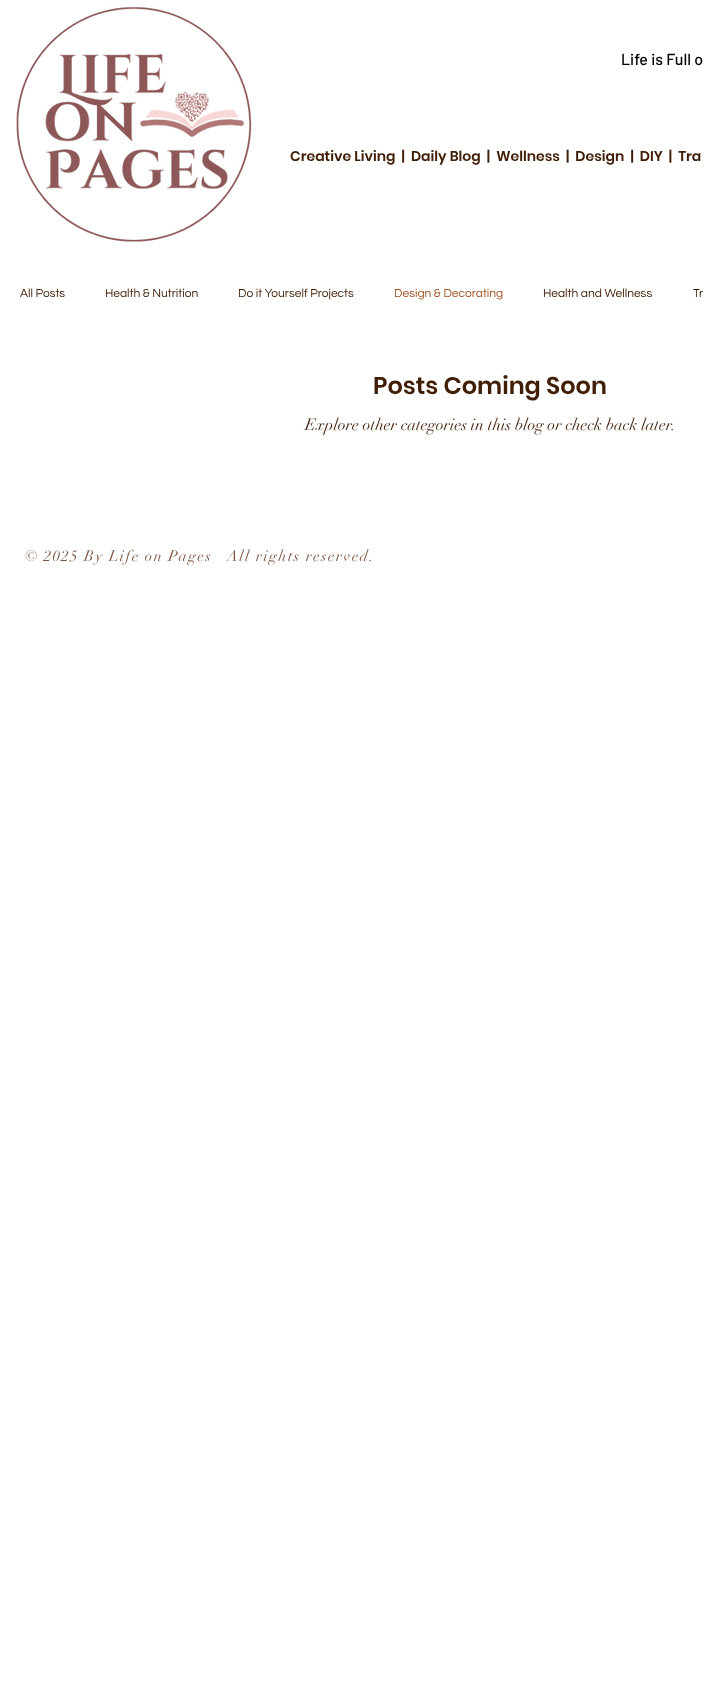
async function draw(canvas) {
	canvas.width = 704;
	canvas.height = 1694;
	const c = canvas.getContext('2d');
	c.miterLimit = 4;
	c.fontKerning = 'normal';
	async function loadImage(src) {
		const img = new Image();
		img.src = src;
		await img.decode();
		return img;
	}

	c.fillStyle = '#fff';
	c.fillRect(0, 0, 704, 1694);
	c.drawImage(await loadImage('img1.png'), 16, 6, 237, 236);
	c.font = '500 16px Barlow';
	c.fillStyle = '#000';
	c.fillText('Life is Full o', 621, 65);
	c.font = '600 14px Poppins';
	c.fillStyle = '#411e06';
	c.fillText('Creative Living  |  Daily Blog  |  Wellness  |  Design  |  DIY  |  Tra', 290, 161);
	c.font = '12px Questrial';
	for (const [text, x, y] of [
		['All Posts', 20, 297],
		['Health & Nutrition', 105, 297],
		['Do it Yourself Projects', 238, 297],
	]) {
		c.fillText(text, x, y);
	}
	c.fillStyle = '#a05222';
	c.fillText('Design & Decorating', 394, 297);
	c.fillStyle = '#411e06';
	c.fillText('Health and Wellness', 543, 297);
	c.fillText('Tr', 693, 297);
	c.font = '600 24px Poppins';
	c.fillText('Posts Coming Soon', 373, 394);
	c.font = '16px didot';
	c.fillText('Explore other categories in this blog or check back later.', 305, 430);
	c.letterSpacing = '1.5px';
	c.font = '15px didot';
	c.fillStyle = '#7e5541';
	c.fillText('© 2025 By Life on Pages', 25, 561);
	c.fillText('All rights reserved.', 227, 561);
}

draw(document.querySelector('canvas'));
